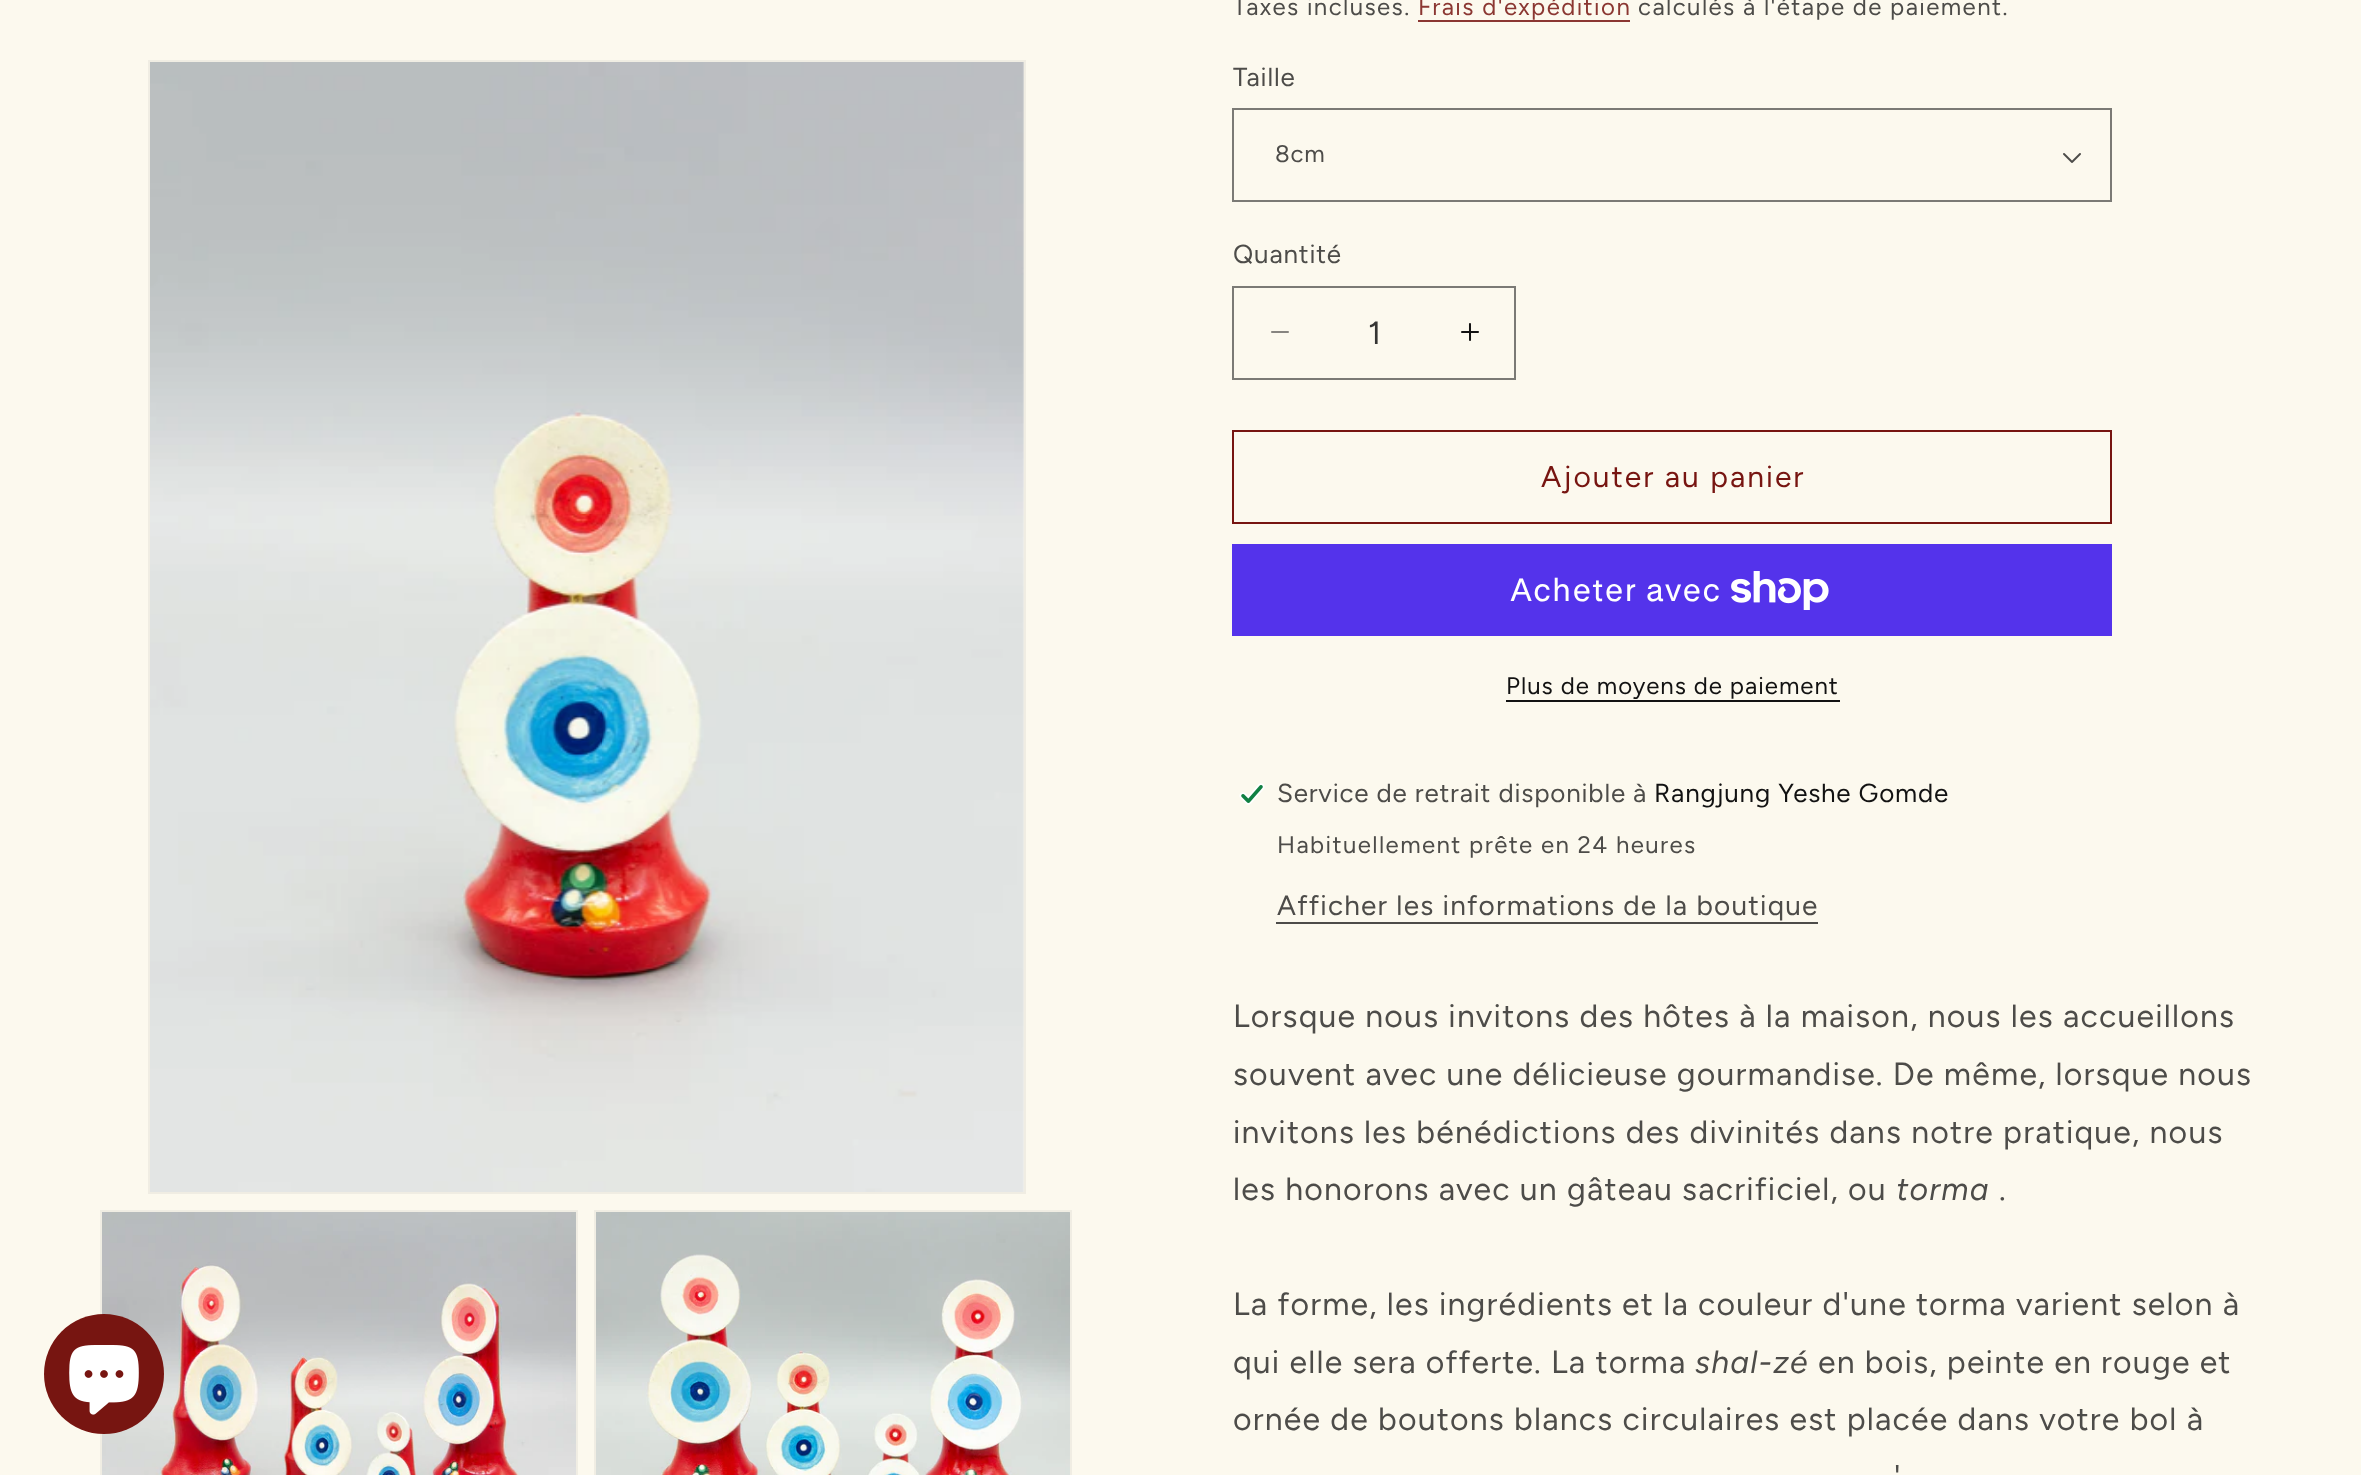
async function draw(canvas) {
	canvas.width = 2361;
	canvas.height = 1475;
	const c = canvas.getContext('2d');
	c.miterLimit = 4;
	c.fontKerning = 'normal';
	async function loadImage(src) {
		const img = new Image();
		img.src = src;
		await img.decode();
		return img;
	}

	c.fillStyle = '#fcf9ee';
	c.fillRect(0, 0, 2361, 1475);
	c.strokeStyle = '#f0ede3';
	c.lineWidth = 2;
	c.strokeRect(101, 1211, 476, 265);
	c.drawImage(await loadImage('img3.png'), 102, 1212, 474, 263);
	c.fillStyle = '#771511';
	c.beginPath();
	c.arc(104, 1374, 60, 0, 2 * Math.PI);
	c.fill();
	c.drawImage(await loadImage('img1.png'), 69, 1345, 70, 70);
	c.strokeRect(149, 61, 876, 1132);
	c.drawImage(await loadImage('img2.png'), 150, 62, 874, 1130);
	c.strokeRect(595, 1211, 476, 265);
	c.drawImage(await loadImage('img4.png'), 596, 1212, 474, 263);
	c.letterSpacing = '1.4px';
	c.font = '24px Figtree';
	c.fillStyle = '#4d4c49';
	c.fillText('Taxes incluses.', 1233, 15);
	c.fillStyle = '#8b3732';
	c.fillText('Frais d\'expédition', 1418, 15);
	c.fillRect(1418, 20, 212, 2);
	c.fillStyle = '#4d4c49';
	c.fillText('calculés à l\'étape de paiement.', 1638, 15);
	c.letterSpacing = '0.8px';
	c.font = '26px Figtree';
	c.fillText('Taille', 1233, 86);
	c.drawImage(await loadImage('img5.png'), 2063, 153, 18, 10);
	c.strokeStyle = '#7b7a75';
	c.strokeRect(1233, 109, 878, 92);
	c.font = '24px Figtree';
	c.fillText('8cm', 1275, 162);
	c.font = '26px Figtree';
	c.fillText('Quantité', 1233, 263);
	c.drawImage(await loadImage('img6.png'), 1271, 331, 18, 2);
	c.drawImage(await loadImage('img7.png'), 1461, 323, 18, 18);
	c.strokeRect(1233, 287, 282, 92);
	c.letterSpacing = '0px';
	c.font = '32px Figtree';
	c.fillStyle = '#353533';
	c.fillText('1', 1368, 344);
	c.strokeStyle = '#771511';
	c.strokeRect(1233, 431, 878, 92);
	c.letterSpacing = '2px';
	c.font = '30px Figtree';
	c.fillStyle = '#771511';
	c.fillText('Ajouter au panier', 1541, 487);
	c.fillStyle = '#5433eb';
	c.fillRect(1232, 544, 880, 92);
	c.letterSpacing = '1.2px';
	c.font = '32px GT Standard';
	c.fillStyle = '#fff';
	c.fillText('Acheter avec', 1510, 601);
	c.drawImage(await loadImage('img8.png'), 1731, 571, 98, 39);
	c.letterSpacing = '1px';
	c.font = '24px Figtree';
	c.fillStyle = '#121212';
	c.fillText('Plus de moyens de paiement', 1506, 694);
	c.fillRect(1506, 700, 334, 2);
	c.drawImage(await loadImage('img9.png'), 1239, 783, 26, 22);
	c.letterSpacing = '0.8px';
	c.font = '26px Figtree';
	c.fillStyle = '#4d4c49';
	c.fillText('Service de retrait disponible à', 1277, 802);
	c.fillStyle = '#121212';
	c.fillText('Rangjung Yeshe Gomde', 1654, 802);
	c.letterSpacing = '1.4px';
	c.font = '24px Figtree';
	c.fillStyle = '#4d4c49';
	c.fillText('Habituellement prête en 24 heures', 1277, 853);
	c.letterSpacing = '1.2px';
	c.font = '28px Figtree';
	c.fillText('Afficher les informations de la boutique', 1277, 915);
	c.fillRect(1276, 922, 542, 2);
	c.font = '32px Figtree';
	for (const [text, x, y] of [
		['Lorsque nous invitons des hôtes à la maison, nous les accueillons', 1233, 1027],
		['souvent avec une délicieuse gourmandise. De même, lorsque nous', 1233, 1085],
		['invitons les bénédictions des divinités dans notre pratique, nous', 1233, 1143],
		['les honorons avec un gâteau sacrificiel, ou', 1233, 1200],
	]) {
		c.fillText(text, x, y);
	}
	c.font = 'italic 32px Figtree';
	c.fillText('torma', 1896, 1200);
	c.font = '32px Figtree';
	for (const [text, x, y] of [
		['.', 1999, 1200],
		['La forme, les ingrédients et la couleur d\'une torma varient selon à', 1233, 1315],
		['qui elle sera offerte. La torma', 1233, 1373],
	]) {
		c.fillText(text, x, y);
	}
	c.font = 'italic 32px Figtree';
	c.fillText('shal-zé', 1695, 1373);
	c.font = '32px Figtree';
	for (const [text, x, y] of [
		['en bois, peinte en rouge et', 1818, 1373],
		['ornée de boutons blancs circulaires est placée dans votre bol à', 1233, 1430],
		['\'', 1894, 1488],
	]) {
		c.fillText(text, x, y);
	}
}

draw(document.querySelector('canvas'));
